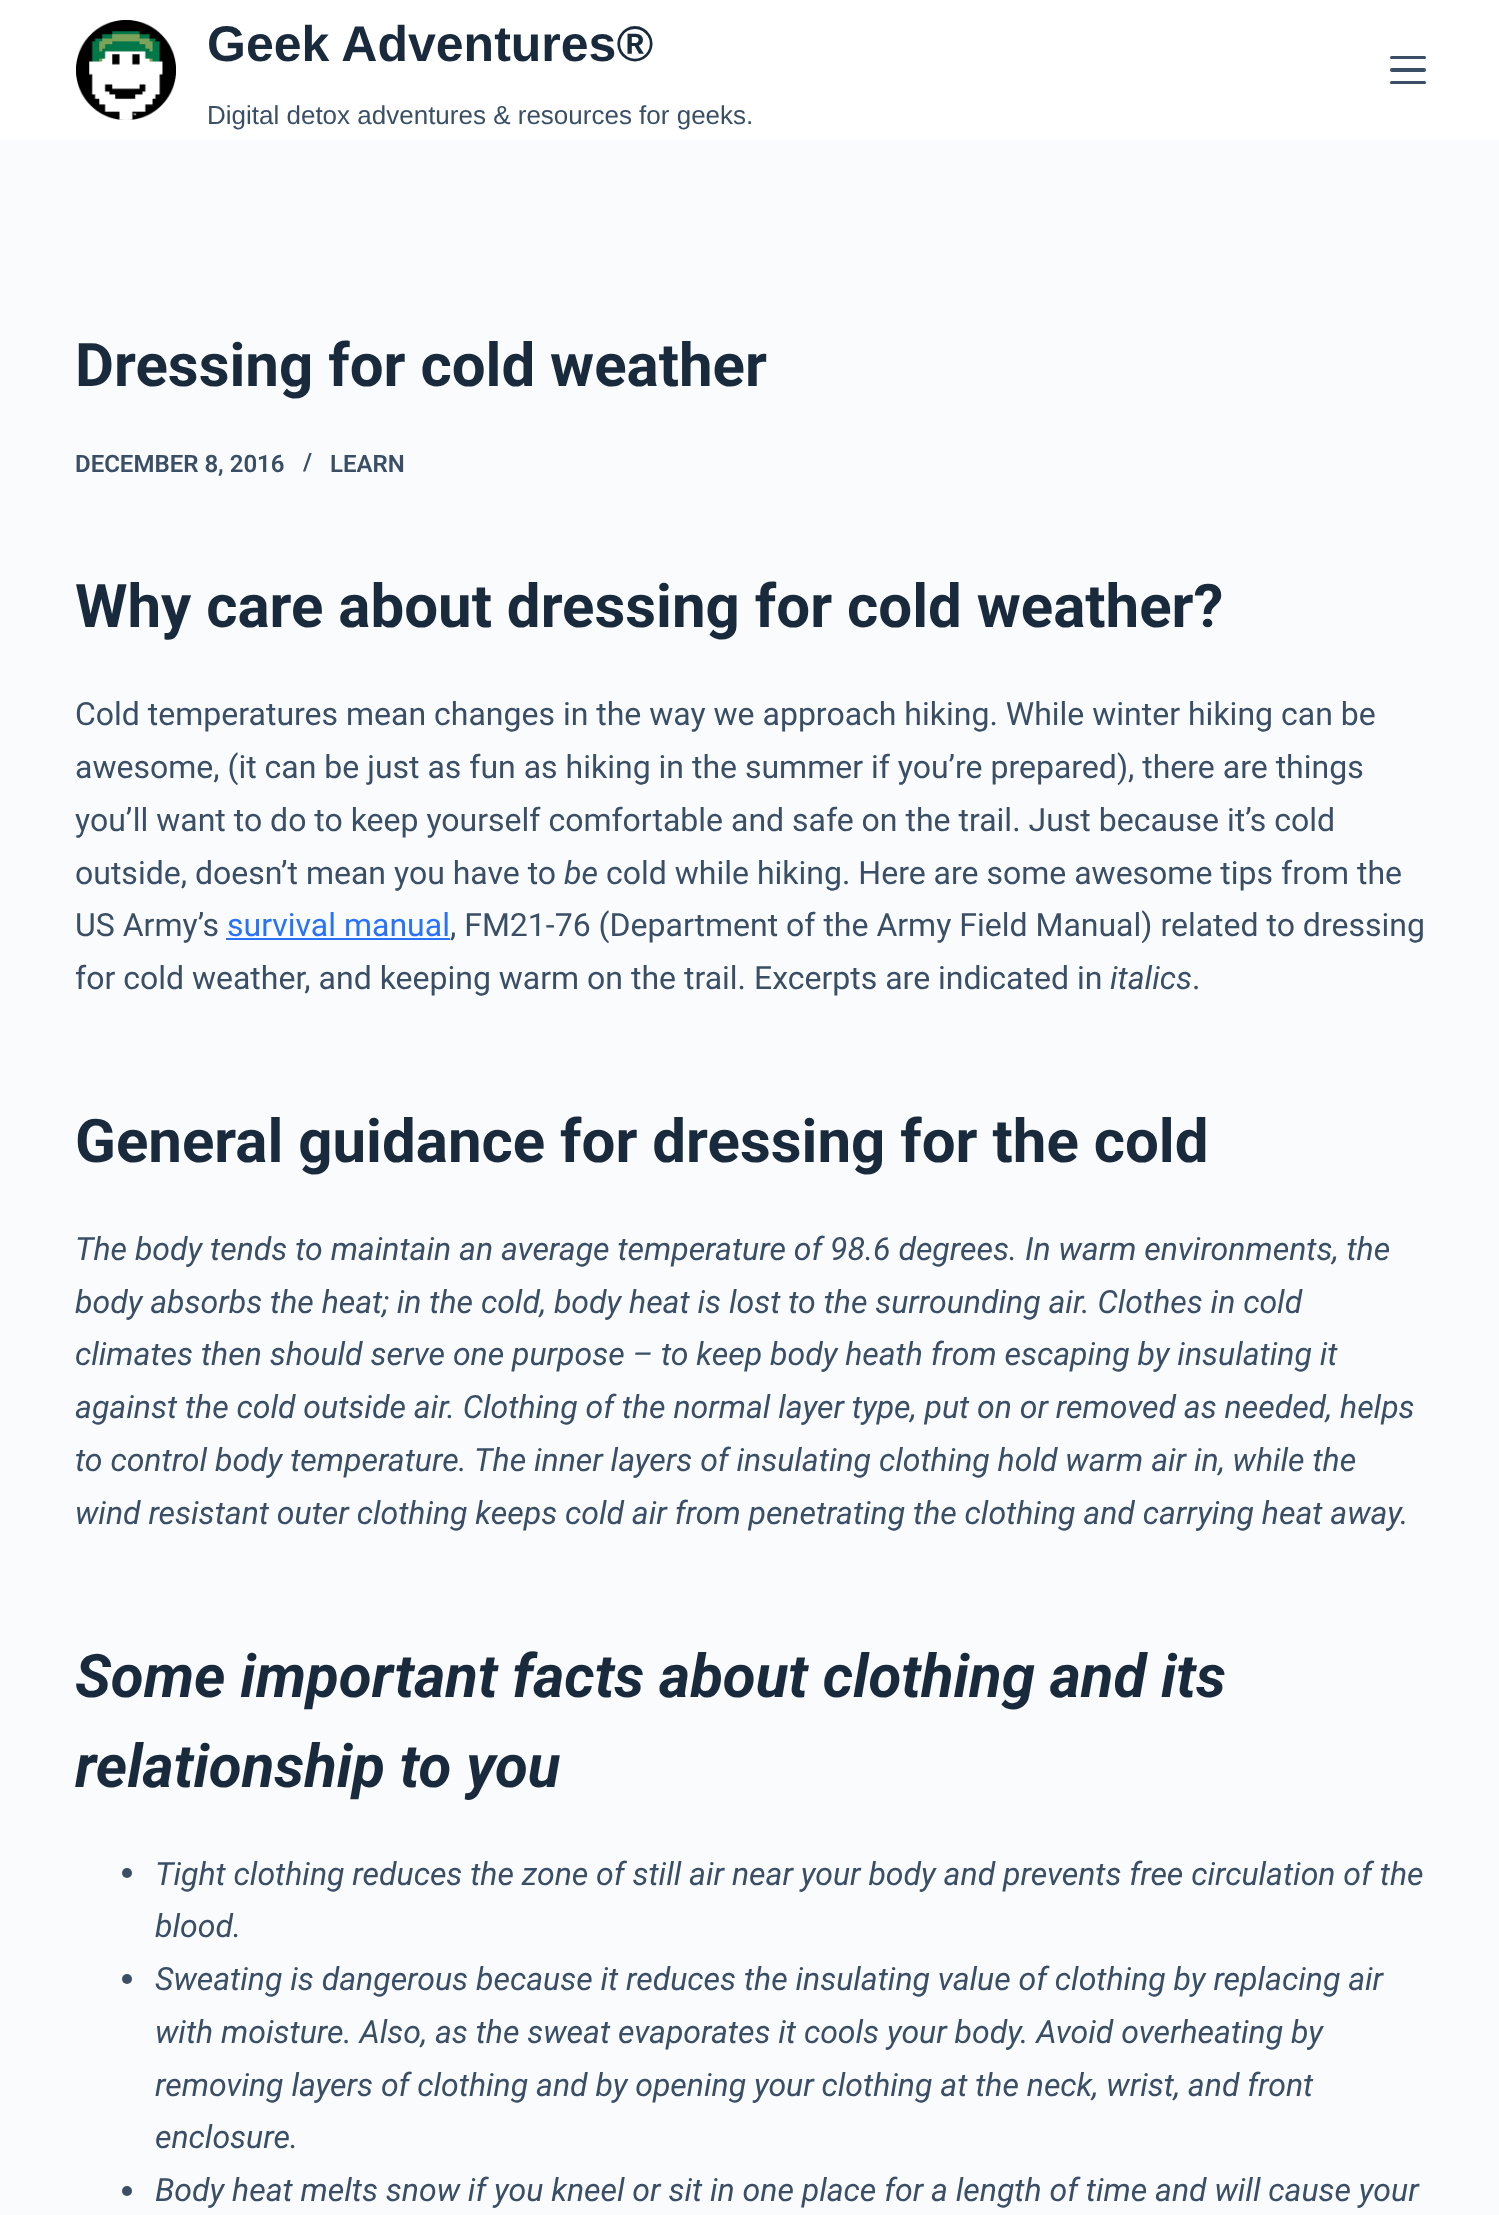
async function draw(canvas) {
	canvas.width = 1499;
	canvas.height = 2215;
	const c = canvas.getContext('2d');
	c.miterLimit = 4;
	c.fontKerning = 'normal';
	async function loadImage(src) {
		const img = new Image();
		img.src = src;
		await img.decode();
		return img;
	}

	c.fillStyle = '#fafbfc';
	c.fillRect(0, 0, 1499, 2215);
	c.fillStyle = '#fff';
	c.fillRect(0, 0, 1499, 140);
	c.drawImage(await loadImage('img1.png'), 76, 20, 100, 100);
	c.font = 'bold 50px Liberation Sans';
	c.fillStyle = '#192a3d';
	c.fillText('Geek Adventures®', 207, 61);
	c.font = '26px Liberation Sans';
	c.fillStyle = '#3a4f66';
	c.fillText('Digital detox adventures & resources for geeks.', 207, 124);
	c.beginPath();
	c.roundRect(1390, 56, 36, 3, 1.5);
	c.fill();
	c.beginPath();
	c.roundRect(1390, 68, 36, 4, 2);
	c.fill();
	c.beginPath();
	c.roundRect(1390, 81, 36, 3, 1.5);
	c.fill();
	c.font = 'bold 60px Roboto';
	c.fillStyle = '#192a3d';
	c.fillText('Dressing for cold weather', 75, 386);
	c.font = '600 24px Roboto';
	c.fillStyle = '#3a4f66';
	for (const [text, x, y] of [
		['DECEMBER 8, 2016', 75, 472],
		['/', 303, 470],
		['LEARN', 330, 472],
	]) {
		c.fillText(text, x, y);
	}
	c.font = 'bold 60px Roboto';
	c.fillStyle = '#192a3d';
	c.fillText('Why care about dressing for cold weather?', 75, 627);
	c.font = '32px Roboto';
	c.fillStyle = '#3a4f66';
	for (const [text, x, y] of [
		['Cold temperatures mean changes in the way we approach hiking. While winter hiking can be', 75, 725],
		['awesome, (it can be just as fun as hiking in the summer if you’re prepared), there are things', 75, 778],
		['you’ll want to do to keep yourself comfortable and safe on the trail. Just because it’s cold', 75, 831],
		['outside, doesn’t mean you have to', 75, 884],
	]) {
		c.fillText(text, x, y);
	}
	c.font = 'italic 32px Roboto';
	c.fillText('be', 564, 884);
	c.font = '32px Roboto';
	c.fillText('cold while hiking. Here are some awesome tips from the', 606, 884);
	c.fillText('US Army’s', 75, 936);
	c.fillStyle = '#2872fa';
	c.fillText('survival manual', 227, 936);
	c.fillRect(226, 938, 224, 2);
	c.fillStyle = '#3a4f66';
	c.fillText(', FM21-76 (Department of the Army Field Manual) related to dressing', 450, 936);
	c.fillText('for cold weather, and keeping warm on the trail. Excerpts are indicated in', 75, 989);
	c.font = 'italic 32px Roboto';
	c.fillText('italics', 1110, 989);
	c.font = '32px Roboto';
	c.fillText('.', 1192, 989);
	c.font = 'bold 60px Roboto';
	c.fillStyle = '#192a3d';
	c.fillText('General guidance for dressing for the cold', 75, 1162);
	c.font = 'italic 32px Roboto';
	c.fillStyle = '#3a4f66';
	for (const [text, x, y] of [
		['The body tends to maintain an average temperature of 98.6 degrees. In warm environments, the', 75, 1260],
		['body absorbs the heat; in the cold, body heat is lost to the surrounding air. Clothes in cold', 75, 1313],
		['climates then should serve one purpose – to keep body heath from escaping by insulating it', 75, 1365],
		['against the cold outside air. Clothing of the normal layer type, put on or removed as needed, helps', 75, 1418],
		['to control body temperature. The inner layers of insulating clothing hold warm air in, while the', 75, 1471],
		['wind resistant outer clothing keeps cold air from penetrating the clothing and carrying heat away.', 75, 1524],
	]) {
		c.fillText(text, x, y);
	}
	c.font = 'italic bold 60px Roboto';
	c.fillStyle = '#192a3d';
	c.fillText('Some important facts about clothing and its', 75, 1697);
	c.fillText('relationship to you', 75, 1787);
	c.fillStyle = '#3a4f66';
	c.beginPath();
	c.arc(127, 1873, 5, 0, 2 * Math.PI);
	c.fill();
	c.font = 'italic 32px Roboto';
	c.fillText('Tight clothing reduces the zone of still air near your body and prevents free circulation of the', 155, 1885);
	c.fillText('blood.', 155, 1937);
	c.beginPath();
	c.arc(127, 1979, 5, 0, 2 * Math.PI);
	c.fill();
	for (const [text, x, y] of [
		['Sweating is dangerous because it reduces the insulating value of clothing by replacing air', 155, 1990],
		['with moisture. Also, as the sweat evaporates it cools your body. Avoid overheating by', 155, 2043],
		['removing layers of clothing and by opening your clothing at the neck, wrist, and front', 155, 2096],
		['enclosure.', 155, 2148],
	]) {
		c.fillText(text, x, y);
	}
	c.beginPath();
	c.arc(127, 2191, 5, 0, 2 * Math.PI);
	c.fill();
	c.fillText('Body heat melts snow if you kneel or sit in one place for a length of time and will cause your', 155, 2201);
}

draw(document.querySelector('canvas'));
